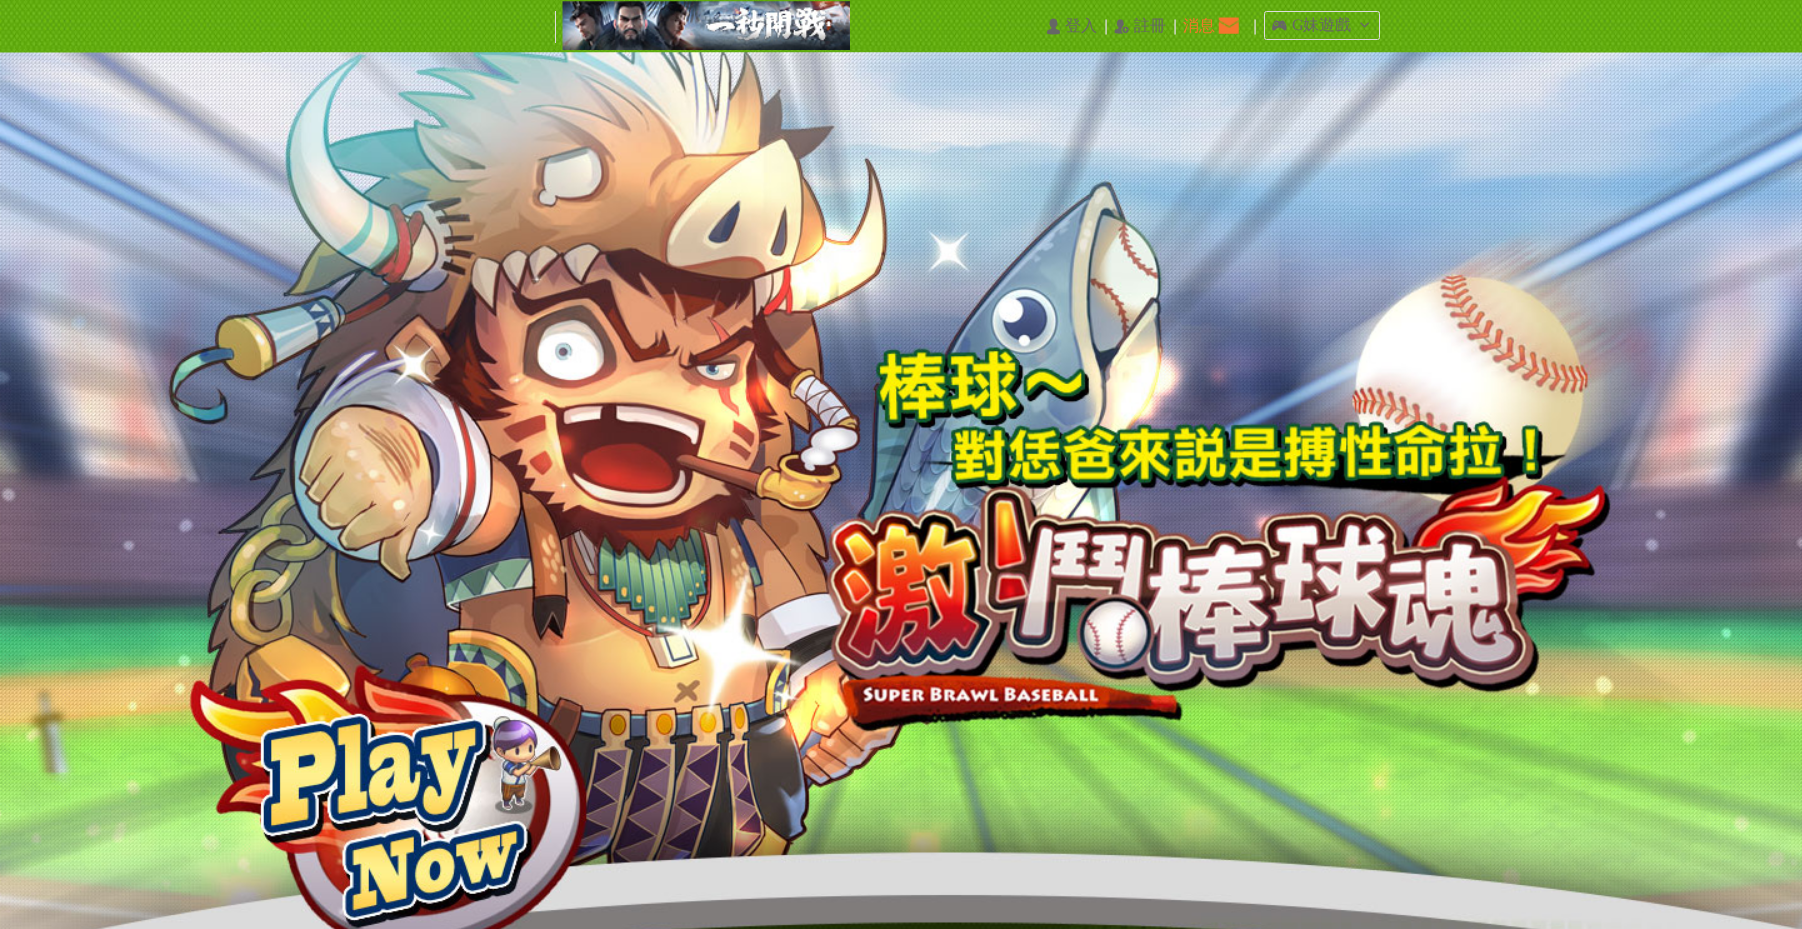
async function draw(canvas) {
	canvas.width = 1802;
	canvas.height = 929;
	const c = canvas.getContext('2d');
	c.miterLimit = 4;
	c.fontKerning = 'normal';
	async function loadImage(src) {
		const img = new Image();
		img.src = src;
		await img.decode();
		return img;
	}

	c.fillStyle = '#fff';
	c.fillRect(0, 0, 1802, 929);
	c.drawImage(await loadImage('img1.png'), 0, 0, 1802, 53);
	c.fillStyle = '#ddd';
	c.fillRect(555, 11, 1, 32);
	c.drawImage(await loadImage('img2.png'), 562, 1, 288, 49);
	c.drawImage(await loadImage('img3.png'), 1047, 18, 13, 17);
	c.font = '500 16px WenQuanYi Zen Hei';
	c.fillStyle = '#666';
	c.fillText('登入', 1065, 31);
	c.font = '16px Liberation Sans';
	c.fillStyle = '#ddd';
	c.fillText('|', 1104, 31);
	c.drawImage(await loadImage('img4.png'), 1114, 19, 15, 15);
	c.font = '500 16px WenQuanYi Zen Hei';
	c.fillStyle = '#666';
	c.fillText('註冊', 1134, 31);
	c.font = '16px Liberation Sans';
	c.fillStyle = '#ddd';
	c.fillText('|', 1173, 31);
	c.font = '500 16px WenQuanYi Zen Hei';
	c.fillStyle = '#f7762c';
	c.fillText('消息', 1183, 31);
	c.drawImage(await loadImage('img5.png'), 1218, 17, 21, 17);
	c.font = '16px Liberation Sans';
	c.fillStyle = '#ddd';
	c.fillText('|', 1253, 31);
	c.beginPath();
	c.roundRect(1264.5, 11.5, 115, 28, 2);
	c.strokeStyle = '#ddd';
	c.stroke();
	c.drawImage(await loadImage('img6.png'), 1272, 20, 15, 11);
	c.font = '16px Liberation Serif';
	c.fillStyle = '#666';
	c.fillText('G', 1292, 30);
	c.font = '500 16px WenQuanYi Zen Hei';
	c.fillText('妹遊戲', 1303, 30);
	c.drawImage(await loadImage('img7.png'), 1360, 22, 9, 6);
	c.drawImage(await loadImage('img8.png'), 0, 52, 1802, 877);
	c.drawImage(await loadImage('img9.png'), 261, 52, 1281, 873);
}

draw(document.querySelector('canvas'));
